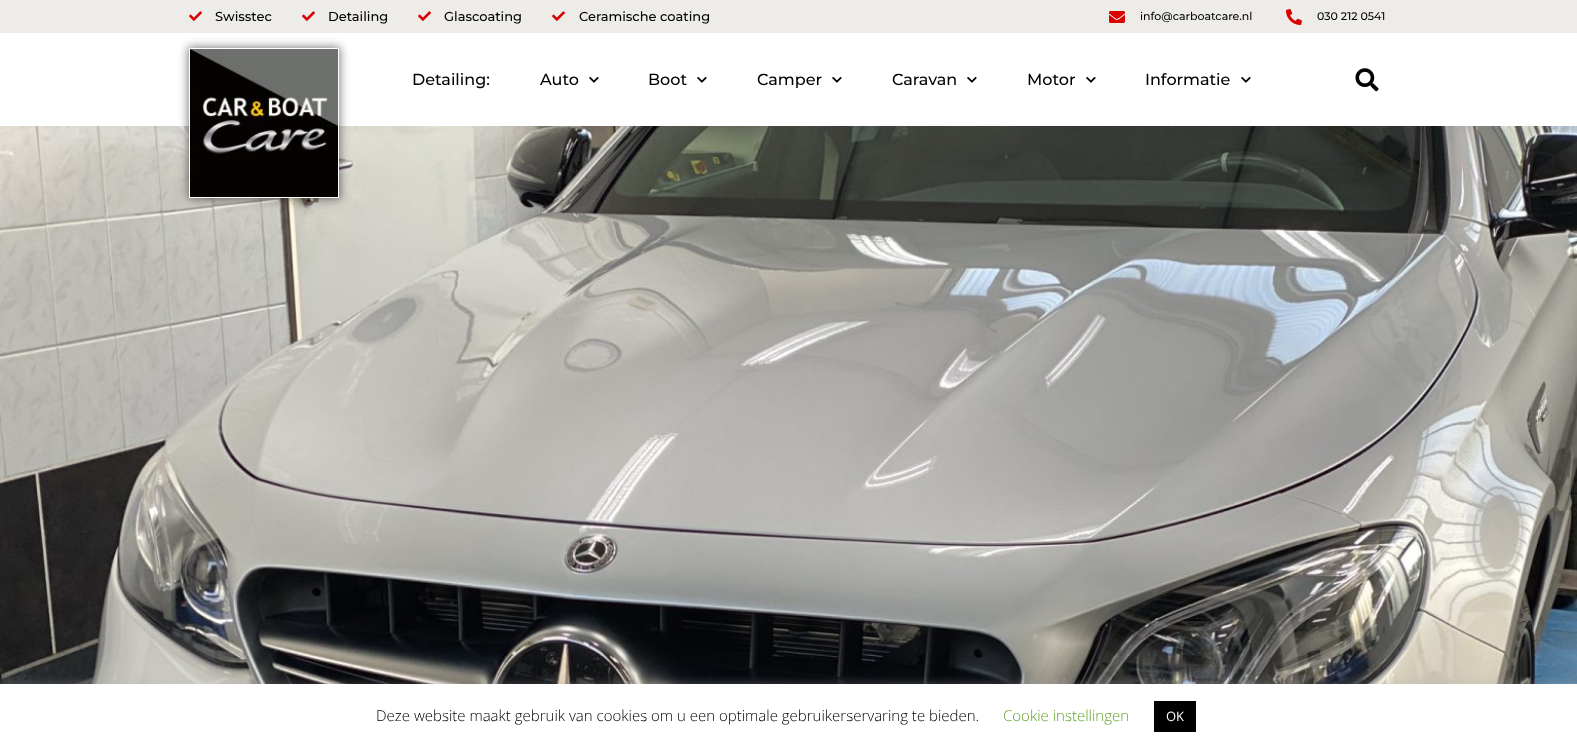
async function draw(canvas) {
	canvas.width = 1577;
	canvas.height = 749;
	const c = canvas.getContext('2d');
	c.miterLimit = 4;
	c.fontKerning = 'normal';
	async function loadImage(src) {
		const img = new Image();
		img.src = src;
		await img.decode();
		return img;
	}

	c.fillStyle = '#fff';
	c.fillRect(0, 0, 1577, 749);
	c.fillStyle = '#eeece9';
	c.fillRect(0, 0, 1577, 33);
	c.drawImage(await loadImage('img1.png'), 189, 11, 13, 10);
	c.font = '500 13px Montserrat';
	c.fillStyle = '#000';
	c.fillText('Swisstec', 215, 21);
	c.drawImage(await loadImage('img1.png'), 302, 11, 13, 10);
	c.fillText('Detailing', 328, 21);
	c.drawImage(await loadImage('img1.png'), 418, 11, 13, 10);
	c.fillText('Glascoating', 444, 21);
	c.drawImage(await loadImage('img1.png'), 552, 11, 13, 10);
	c.fillText('Ceramische coating', 579, 21);
	c.drawImage(await loadImage('img2.png'), 1109, 11, 16, 12);
	c.font = '500 11px Montserrat';
	c.fillText('info@carboatcare.nl', 1140, 20);
	c.drawImage(await loadImage('img3.png'), 1286, 9, 16, 16);
	c.fillText('030 212 0541', 1317, 20);
	c.drawImage(await loadImage('img7.png'), 0, 126, 1577, 558);
	c.fillStyle = '#00000080';
	c.filter = 'blur(5px)';
	c.beginPath();
	c.rect(188, 47, 152, 152);
	c.fill();
	c.filter = 'none';
	c.strokeStyle = '#fff';
	c.strokeRect(189.5, 48.5, 149, 149);
	c.drawImage(await loadImage('img4.png'), 190, 49, 148, 148);
	c.font = '500 16px Montserrat';
	c.fillStyle = '#000';
	c.fillText('Detailing:', 412, 85);
	c.fillText('Auto', 540, 85);
	c.drawImage(await loadImage('img5.png'), 589, 77, 10, 6);
	c.fillText('Boot', 648, 85);
	c.drawImage(await loadImage('img5.png'), 697, 77, 10, 6);
	c.fillText('Camper', 757, 85);
	c.drawImage(await loadImage('img5.png'), 832, 77, 10, 6);
	c.fillText('Caravan', 892, 85);
	c.drawImage(await loadImage('img5.png'), 967, 77, 10, 6);
	c.fillText('Motor', 1027, 85);
	c.drawImage(await loadImage('img5.png'), 1086, 77, 10, 6);
	c.fillText('Informatie', 1145, 85);
	c.drawImage(await loadImage('img5.png'), 1241, 77, 10, 6);
	c.drawImage(await loadImage('img6.png'), 1355, 68, 24, 24);
	c.fillStyle = '#acabab4d';
	c.filter = 'blur(5px)';
	c.beginPath();
	c.rect(0, 683, 1577, 65);
	c.fill();
	c.filter = 'none';
	c.fillStyle = '#fff';
	c.fillRect(0, 684, 1577, 65);
	c.font = '300 15px Open Sans';
	c.fillStyle = '#000';
	c.fillText('Deze website maakt gebruik van cookies om u een optimale gebruikerservaring te bieden.', 376, 721);
	c.fillStyle = '#62a329';
	c.fillText('Cookie instellingen', 1003, 721);
	c.fillStyle = '#000';
	c.fillRect(1154, 701, 42, 31);
	c.font = '13px Open Sans';
	c.fillStyle = '#fff';
	c.fillText('OK', 1166, 721);
}

draw(document.querySelector('canvas'));
